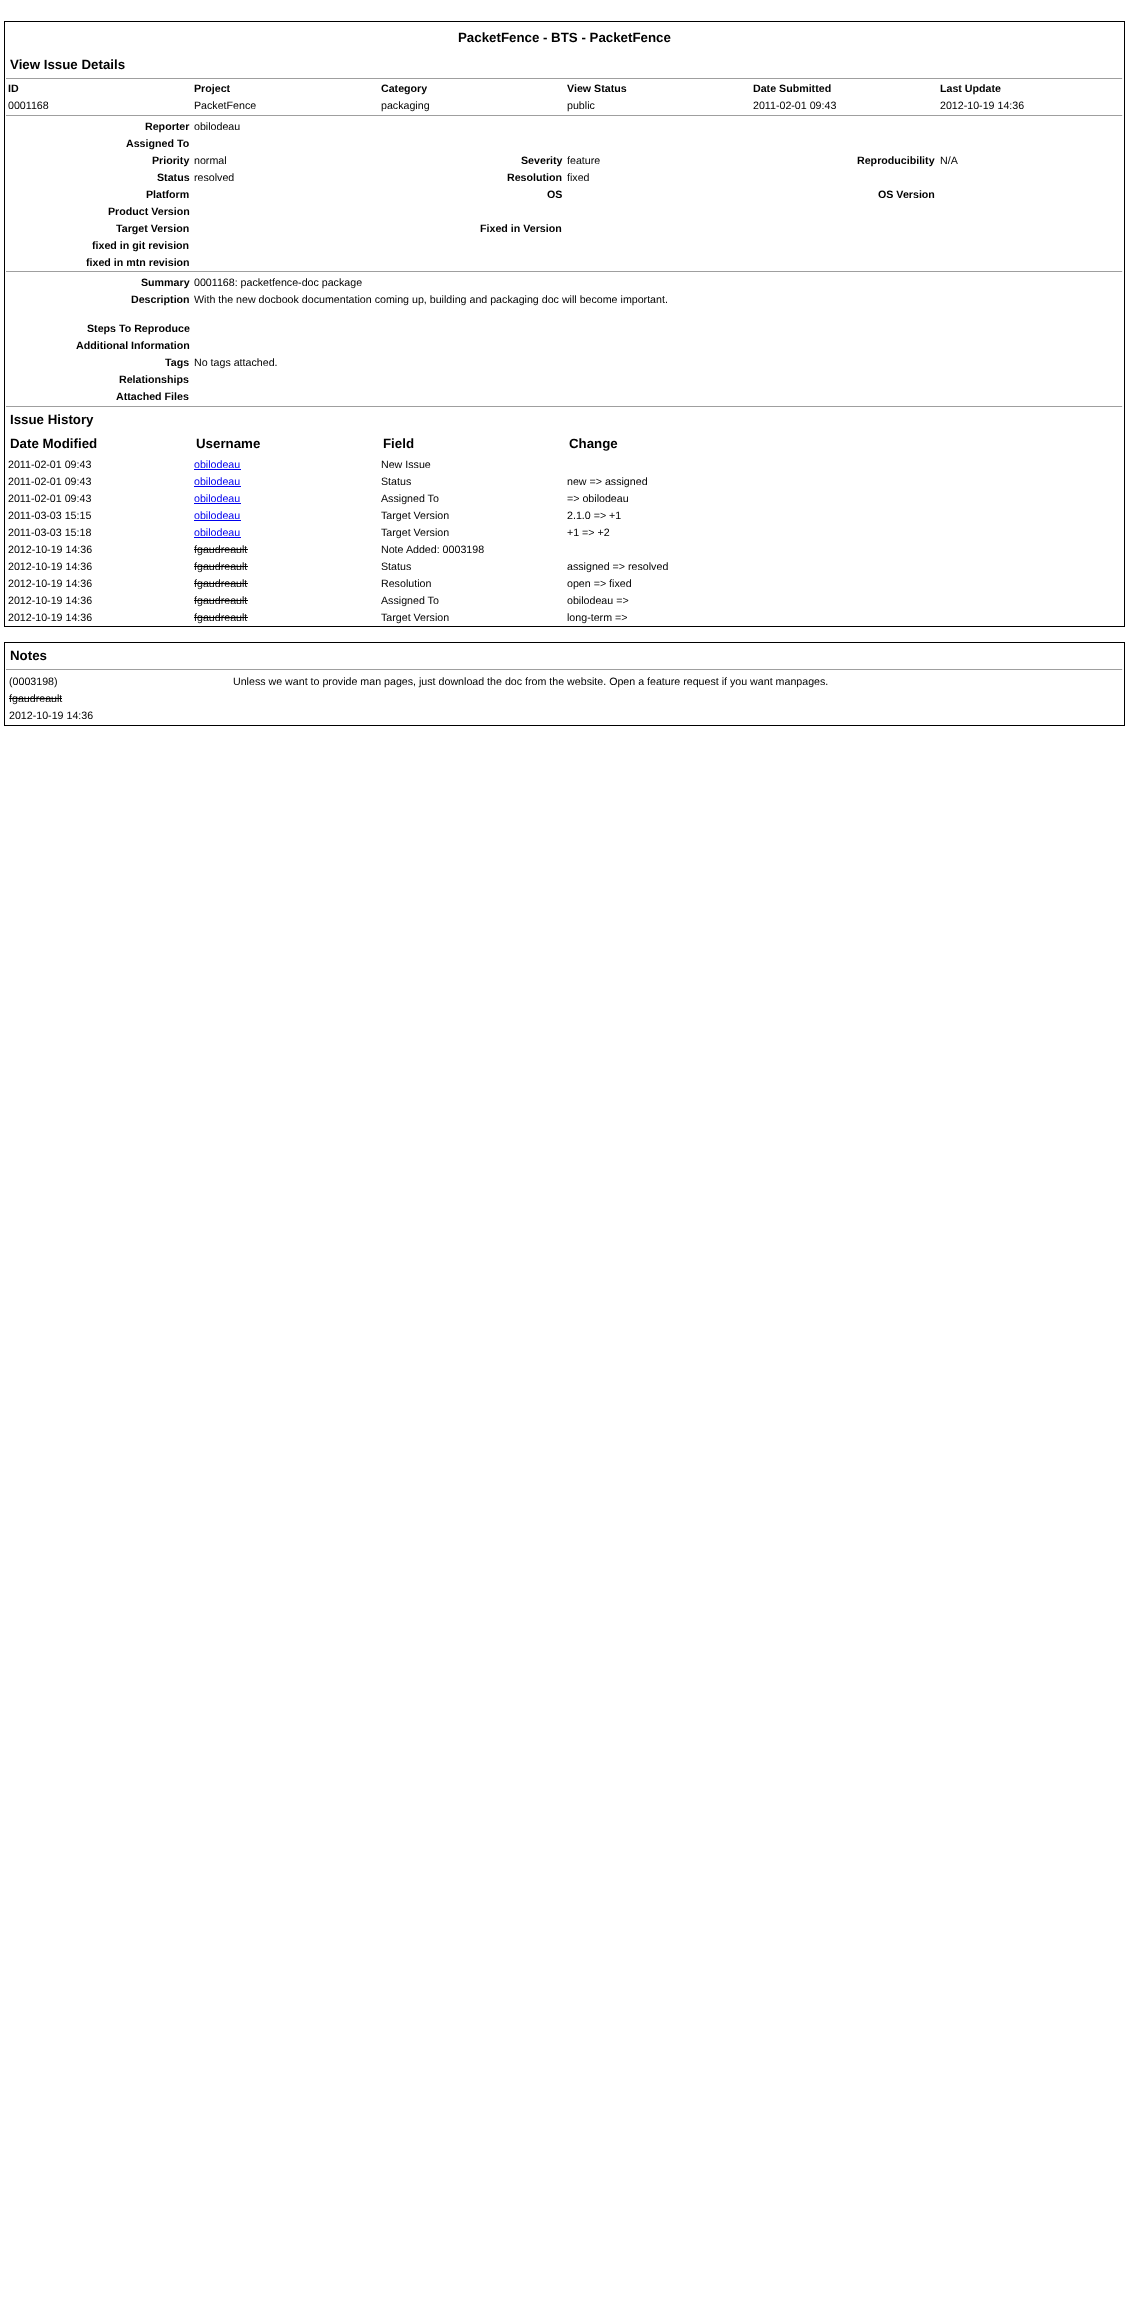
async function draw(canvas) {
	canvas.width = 1129;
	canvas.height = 2310;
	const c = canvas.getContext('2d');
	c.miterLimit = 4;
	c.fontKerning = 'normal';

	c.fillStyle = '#fff';
	c.fillRect(0, 0, 1129, 2310);
	c.strokeStyle = '#000';
	c.strokeRect(4.5, 21.5, 1120, 605);
	c.font = 'bold 13.3px Liberation Sans';
	c.fillStyle = '#000';
	c.fillText('PacketFence - BTS - PacketFence', 458, 42);
	c.fillText('View Issue Details', 10, 69);
	c.fillStyle = '#9f9f9f';
	c.fillRect(6, 78, 1117, 1);
	c.fillStyle = '#eee';
	c.fillRect(1122, 78, 1, 1);
	c.font = 'bold 10.67px Liberation Sans';
	c.fillStyle = '#000';
	for (const [text, x, y] of [
		['ID', 8, 92],
		['Project', 194, 92],
		['Category', 381, 92],
		['View Status', 567, 92],
		['Date Submitted', 753, 92],
		['Last Update', 940, 92],
	]) {
		c.fillText(text, x, y);
	}
	c.font = '10.67px Liberation Sans';
	for (const [text, x, y] of [
		['0001168', 8, 109],
		['PacketFence', 194, 109],
		['packaging', 381, 109],
		['public', 567, 109],
		['2011-02-01 09:43', 753, 109],
		['2012-10-19 14:36', 940, 109],
	]) {
		c.fillText(text, x, y);
	}
	c.fillStyle = '#9f9f9f';
	c.fillRect(6, 115, 1117, 1);
	c.fillStyle = '#eee';
	c.fillRect(1122, 115, 1, 1);
	c.font = 'bold 10.67px Liberation Sans';
	c.fillStyle = '#000';
	c.fillText('Reporter', 145, 130);
	c.font = '10.67px Liberation Sans';
	c.fillText('obilodeau', 194, 130);
	c.font = 'bold 10.67px Liberation Sans';
	c.fillText('Assigned To', 126, 147);
	c.fillText('Priority', 152, 164);
	c.font = '10.67px Liberation Sans';
	c.fillText('normal', 194, 164);
	c.font = 'bold 10.67px Liberation Sans';
	c.fillText('Severity', 521, 164);
	c.font = '10.67px Liberation Sans';
	c.fillText('feature', 567, 164);
	c.font = 'bold 10.67px Liberation Sans';
	c.fillText('Reproducibility', 857, 164);
	c.font = '10.67px Liberation Sans';
	c.fillText('N/A', 940, 164);
	c.font = 'bold 10.67px Liberation Sans';
	c.fillText('Status', 157, 181);
	c.font = '10.67px Liberation Sans';
	c.fillText('resolved', 194, 181);
	c.font = 'bold 10.67px Liberation Sans';
	c.fillText('Resolution', 507, 181);
	c.font = '10.67px Liberation Sans';
	c.fillText('fixed', 567, 181);
	c.font = 'bold 10.67px Liberation Sans';
	for (const [text, x, y] of [
		['Platform', 146, 198],
		['OS', 547, 198],
		['OS Version', 878, 198],
		['Product Version', 108, 215],
		['Target Version', 116, 232],
		['Fixed in Version', 480, 232],
		['fixed in git revision', 92, 249],
		['fixed in mtn revision', 86, 266],
	]) {
		c.fillText(text, x, y);
	}
	c.fillStyle = '#9f9f9f';
	c.fillRect(6, 271, 1117, 1);
	c.fillStyle = '#eee';
	c.fillRect(1122, 271, 1, 1);
	c.fillStyle = '#000';
	c.fillText('Summary', 141, 286);
	c.font = '10.67px Liberation Sans';
	c.fillText('0001168: packetfence-doc package', 194, 286);
	c.font = 'bold 10.67px Liberation Sans';
	c.fillText('Description', 131, 303);
	c.font = '10.67px Liberation Sans';
	c.fillText('With the new docbook documentation coming up, building and packaging doc will become important.', 194, 303);
	c.font = 'bold 10.67px Liberation Sans';
	for (const [text, x, y] of [
		['Steps To Reproduce', 87, 332],
		['Additional Information', 76, 349],
		['Tags', 165, 366],
	]) {
		c.fillText(text, x, y);
	}
	c.font = '10.67px Liberation Sans';
	c.fillText('No tags attached.', 194, 366);
	c.font = 'bold 10.67px Liberation Sans';
	c.fillText('Relationships', 119, 383);
	c.fillText('Attached Files', 116, 400);
	c.fillStyle = '#9f9f9f';
	c.fillRect(6, 406, 1117, 1);
	c.fillStyle = '#eee';
	c.fillRect(1122, 406, 1, 1);
	c.font = 'bold 13.3px Liberation Sans';
	c.fillStyle = '#000';
	for (const [text, x, y] of [
		['Issue History', 10, 424],
		['Date Modified', 10, 448],
		['Username', 196, 448],
		['Field', 383, 448],
		['Change', 569, 448],
	]) {
		c.fillText(text, x, y);
	}
	c.font = '10.67px Liberation Sans';
	c.fillText('2011-02-01 09:43', 8, 468);
	c.fillStyle = '#00e';
	c.fillText('obilodeau', 194, 468);
	c.fillRect(194, 469, 47, 1);
	c.fillStyle = '#000';
	c.fillText('New Issue', 381, 468);
	c.fillText('2011-02-01 09:43', 8, 485);
	c.fillStyle = '#00e';
	c.fillText('obilodeau', 194, 485);
	c.fillRect(194, 486, 47, 1);
	c.fillStyle = '#000';
	for (const [text, x, y] of [
		['Status', 381, 485],
		['new => assigned', 567, 485],
		['2011-02-01 09:43', 8, 502],
	]) {
		c.fillText(text, x, y);
	}
	c.fillStyle = '#00e';
	c.fillText('obilodeau', 194, 502);
	c.fillRect(194, 503, 47, 1);
	c.fillStyle = '#000';
	for (const [text, x, y] of [
		['Assigned To', 381, 502],
		['=> obilodeau', 567, 502],
		['2011-03-03 15:15', 8, 519],
	]) {
		c.fillText(text, x, y);
	}
	c.fillStyle = '#00e';
	c.fillText('obilodeau', 194, 519);
	c.fillRect(194, 520, 47, 1);
	c.fillStyle = '#000';
	for (const [text, x, y] of [
		['Target Version', 381, 519],
		['2.1.0 => +1', 567, 519],
		['2011-03-03 15:18', 8, 536],
	]) {
		c.fillText(text, x, y);
	}
	c.fillStyle = '#00e';
	c.fillText('obilodeau', 194, 536);
	c.fillRect(194, 537, 47, 1);
	c.fillStyle = '#000';
	for (const [text, x, y] of [
		['Target Version', 381, 536],
		['+1 => +2', 567, 536],
		['2012-10-19 14:36', 8, 553],
		['fgaudreault', 194, 553],
	]) {
		c.fillText(text, x, y);
	}
	c.fillRect(194, 549, 54, 1);
	for (const [text, x, y] of [
		['Note Added: 0003198', 381, 553],
		['2012-10-19 14:36', 8, 570],
		['fgaudreault', 194, 570],
	]) {
		c.fillText(text, x, y);
	}
	c.fillRect(194, 566, 54, 1);
	for (const [text, x, y] of [
		['Status', 381, 570],
		['assigned => resolved', 567, 570],
		['2012-10-19 14:36', 8, 587],
		['fgaudreault', 194, 587],
	]) {
		c.fillText(text, x, y);
	}
	c.fillRect(194, 583, 54, 1);
	for (const [text, x, y] of [
		['Resolution', 381, 587],
		['open => fixed', 567, 587],
		['2012-10-19 14:36', 8, 604],
		['fgaudreault', 194, 604],
	]) {
		c.fillText(text, x, y);
	}
	c.fillRect(194, 600, 54, 1);
	for (const [text, x, y] of [
		['Assigned To', 381, 604],
		['obilodeau =>', 567, 604],
		['2012-10-19 14:36', 8, 621],
		['fgaudreault', 194, 621],
	]) {
		c.fillText(text, x, y);
	}
	c.fillRect(194, 617, 54, 1);
	c.fillText('Target Version', 381, 621);
	c.fillText('long-term =>', 567, 621);
	c.strokeRect(4.5, 642.5, 1120, 83);
	c.font = 'bold 13.3px Liberation Sans';
	c.fillText('Notes', 10, 660);
	c.fillStyle = '#9f9f9f';
	c.fillRect(6, 669, 1117, 1);
	c.fillStyle = '#eee';
	c.fillRect(1122, 669, 1, 1);
	c.font = '10.67px Liberation Sans';
	c.fillStyle = '#000';
	c.fillText('(0003198)', 9, 685);
	c.fillText('fgaudreault', 9, 702);
	c.fillRect(9, 698, 53, 1);
	c.fillText('2012-10-19 14:36', 9, 719);
	c.fillText('Unless we want to provide man pages, just download the doc from the website. Open a feature request if you want manpages.', 233, 685);
}

draw(document.querySelector('canvas'));
